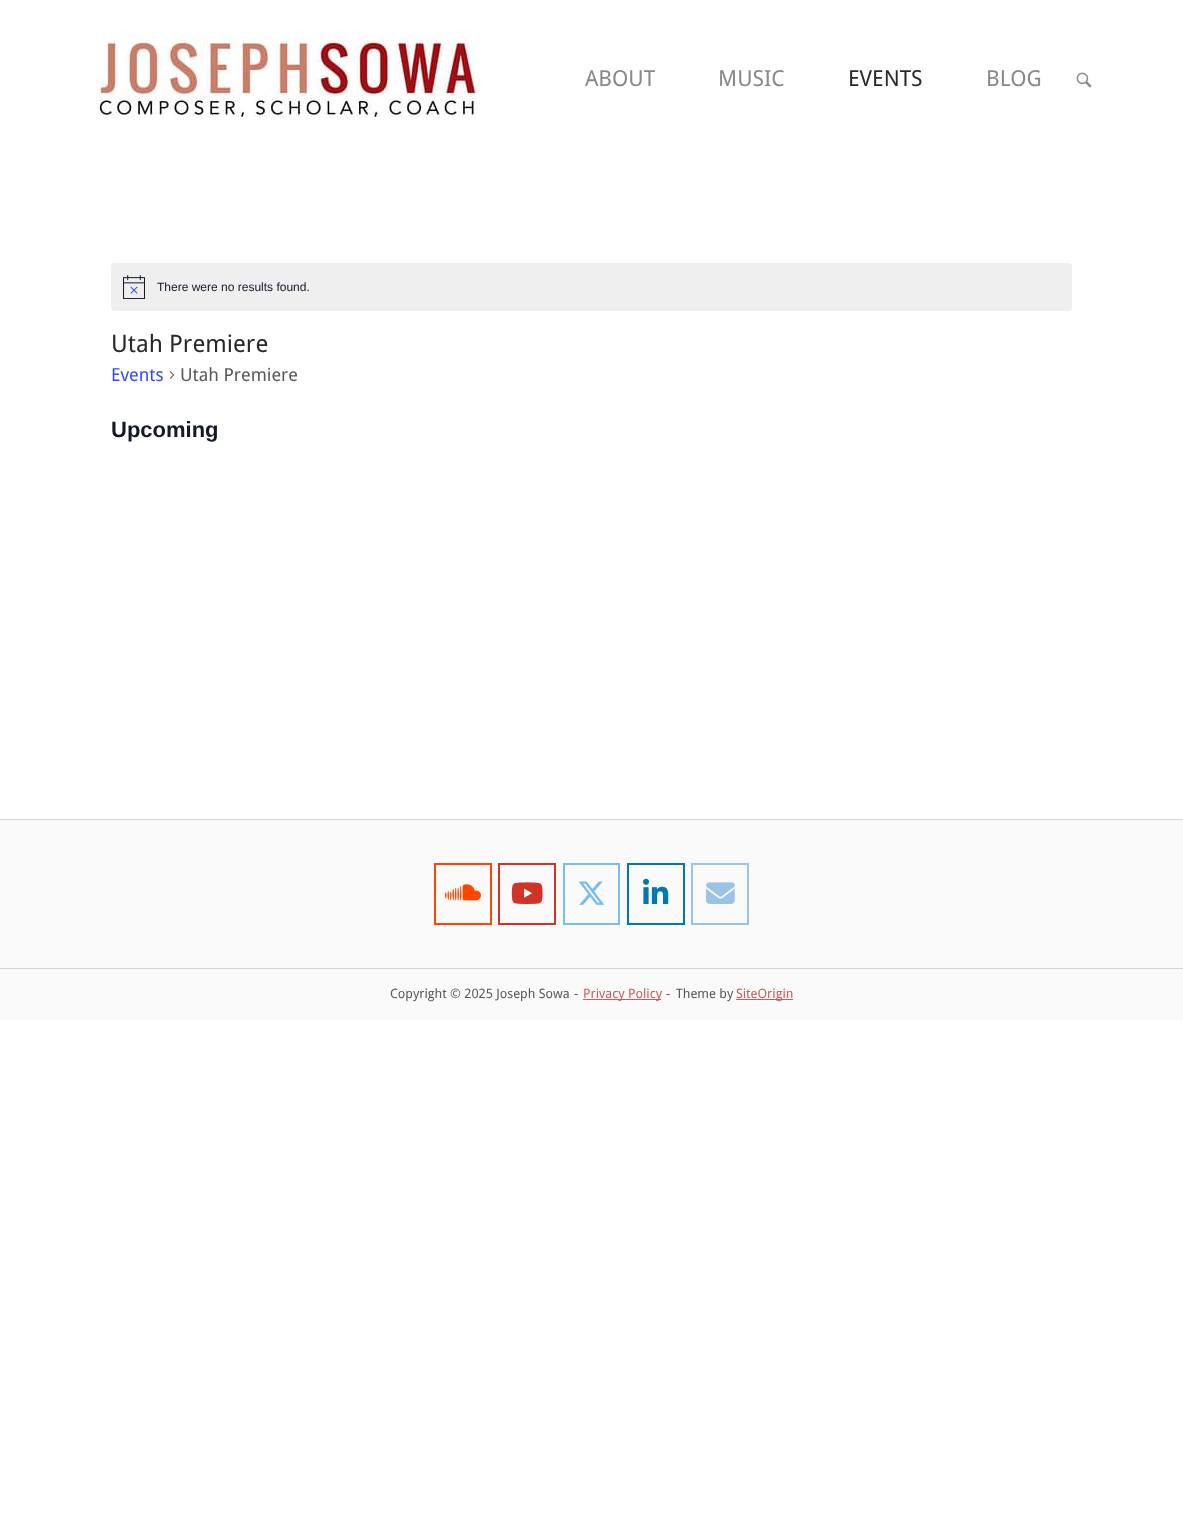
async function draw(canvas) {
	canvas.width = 1183;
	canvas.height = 1529;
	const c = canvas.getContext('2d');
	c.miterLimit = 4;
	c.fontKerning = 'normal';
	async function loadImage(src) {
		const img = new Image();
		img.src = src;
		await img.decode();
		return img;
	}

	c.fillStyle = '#fff';
	c.fillRect(0, 0, 1183, 1529);
	c.drawImage(await loadImage('img1.png'), 92, 30, 384, 88);
	c.font = '22px Droid Sans';
	c.fillStyle = '#898989';
	c.fillText('ABOUT', 585, 86);
	c.fillText('MUSIC', 718, 86);
	c.fillStyle = '#292929';
	c.fillText('EVENTS', 848, 86);
	c.fillStyle = '#898989';
	c.fillText('BLOG', 986, 86);
	c.drawImage(await loadImage('img2.png'), 1076, 72, 16, 16);
	c.fillStyle = '#efeff0';
	c.beginPath();
	c.roundRect(111, 263, 961, 48, 4);
	c.fill();
	c.drawImage(await loadImage('img3.png'), 123, 275, 22, 24);
	c.font = '12px Liberation Sans';
	c.fillStyle = '#141827';
	c.fillText('There were no results found.', 157, 291);
	c.font = '24px Droid Sans';
	c.fillStyle = '#292929';
	c.fillText('Utah Premiere', 111, 352);
	c.font = '18px Droid Sans';
	c.fillStyle = '#334aff';
	c.fillText('Events', 111, 381);
	c.drawImage(await loadImage('img4.png'), 169, 371, 6, 8);
	c.fillStyle = '#595959';
	c.fillText('Utah Premiere', 180, 381);
	c.font = 'bold 22px Liberation Sans';
	c.fillStyle = '#141827';
	c.fillText('Upcoming', 111, 437);
	c.fillStyle = '#fafafa';
	c.fillRect(0, 820, 1183, 200);
	c.fillStyle = '#d4d4d4';
	c.fillRect(0, 819, 1183, 1);
	c.strokeStyle = '#fe4600';
	c.lineWidth = 2;
	c.strokeRect(435, 864, 56, 60);
	c.drawImage(await loadImage('img5.png'), 445, 884, 36, 17);
	c.strokeStyle = '#cf3427';
	c.strokeRect(499, 864, 56, 60);
	c.drawImage(await loadImage('img6.png'), 511, 882, 32, 22);
	c.strokeStyle = '#78bdf1';
	c.strokeRect(564, 864, 55, 60);
	c.drawImage(await loadImage('img7.png'), 578, 881, 27, 24);
	c.strokeStyle = '#0177b4';
	c.strokeRect(628, 864, 56, 60);
	c.drawImage(await loadImage('img8.png'), 643, 878, 26, 26);
	c.strokeStyle = '#99c4e6';
	c.strokeRect(692, 864, 56, 60);
	c.drawImage(await loadImage('img9.png'), 706, 882, 29, 22);
	c.fillRect(0, 968, 1183, 1);
	c.font = '13px Droid Sans';
	c.fillStyle = '#595959';
	c.fillText('Copyright © 2025 Joseph Sowa', 390, 998);
	c.fillText('-', 574, 998);
	c.fillStyle = '#c75d5d';
	c.fillRect(583, 999, 78, 1);
	c.fillText('Privacy Policy', 583, 998);
	c.fillStyle = '#595959';
	c.fillText('-', 666, 998);
	c.fillText('Theme by', 676, 998);
	c.fillStyle = '#c75d5d';
	c.fillRect(736, 999, 57, 1);
	c.fillText('SiteOrigin', 736, 998);
}

draw(document.querySelector('canvas'));
